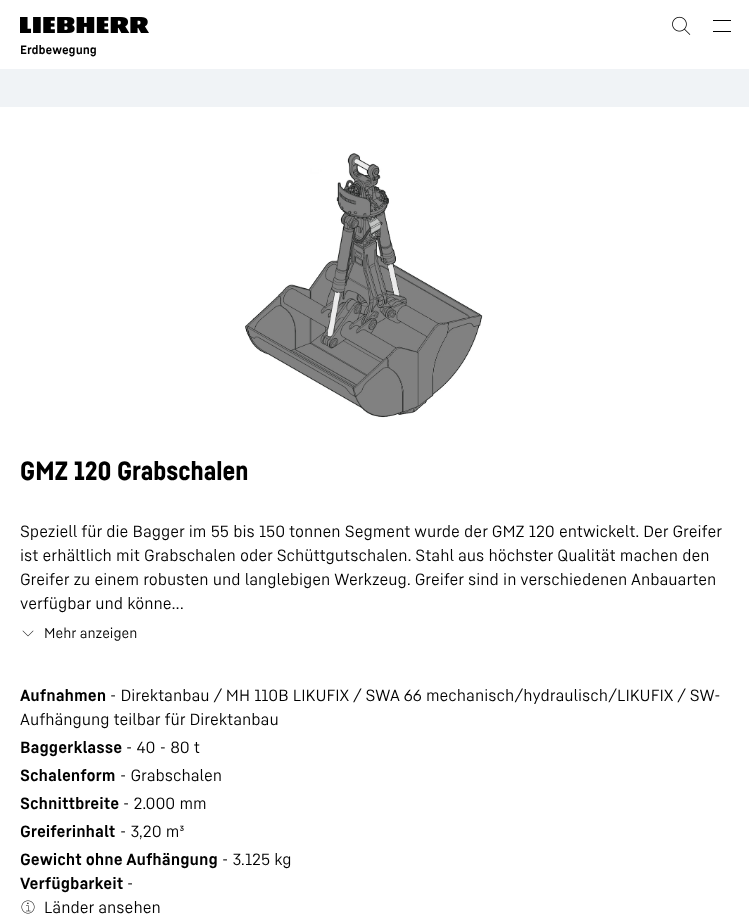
async function draw(canvas) {
	canvas.width = 749;
	canvas.height = 924;
	const c = canvas.getContext('2d');
	c.miterLimit = 4;
	c.fontKerning = 'normal';
	async function loadImage(src) {
		const img = new Image();
		img.src = src;
		await img.decode();
		return img;
	}

	c.fillStyle = '#fff';
	c.fillRect(0, 0, 749, 924);
	c.drawImage(await loadImage('img1.png'), 20, 17, 129, 16);
	c.drawImage(await loadImage('img2.png'), 672, 16, 19, 19);
	c.fillStyle = '#000';
	c.fillRect(713, 20, 18, 1);
	c.fillRect(713, 31, 18, 1);
	c.font = 'bold 12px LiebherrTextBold';
	c.fillText('Erdbewegung', 20, 54);
	c.fillStyle = '#f0f3f6';
	c.fillRect(0, 69, 749, 38);
	c.drawImage(await loadImage('img3.png'), 245, 153, 238, 265);
	c.font = '900 26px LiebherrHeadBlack';
	c.fillStyle = '#000';
	c.fillText('GMZ 120 Grabschalen', 20, 480);
	c.font = '16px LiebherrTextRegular';
	for (const [text, x, y] of [
		['Speziell für die Bagger im 55 bis 150 tonnen Segment wurde der GMZ 120 entwickelt. Der Greifer', 20, 537],
		['ist erhältlich mit Grabschalen oder Schüttgutschalen. Stahl aus höchster Qualität machen den', 20, 561],
		['Greifer zu einem robusten und langlebigen Werkzeug. Greifer sind in verschiedenen Anbauarten', 20, 585],
		['verfügbar und könne...', 20, 609],
	]) {
		c.fillText(text, x, y);
	}
	c.drawImage(await loadImage('img4.png'), 22, 630, 12, 7);
	c.font = '14px LiebherrTextRegular';
	c.fillText('Mehr anzeigen', 44, 638);
	c.font = 'bold 16px LiebherrTextBold';
	c.fillText('Aufnahmen', 20, 701);
	c.font = '16px LiebherrTextRegular';
	c.fillText('- Direktanbau / MH 110B LIKUFIX / SWA 66 mechanisch/hydraulisch/LIKUFIX / SW-', 110, 701);
	c.fillText('Aufhängung teilbar für Direktanbau', 20, 725);
	c.font = 'bold 16px LiebherrTextBold';
	c.fillText('Baggerklasse', 20, 753);
	c.font = '16px LiebherrTextRegular';
	c.fillText('- 40 - 80 t', 126, 753);
	c.font = 'bold 16px LiebherrTextBold';
	c.fillText('Schalenform', 20, 781);
	c.font = '16px LiebherrTextRegular';
	c.fillText('- Grabschalen', 120, 781);
	c.font = 'bold 16px LiebherrTextBold';
	c.fillText('Schnittbreite', 20, 809);
	c.font = '16px LiebherrTextRegular';
	c.fillText('- 2.000 mm', 123, 809);
	c.font = 'bold 16px LiebherrTextBold';
	c.fillText('Greiferinhalt', 20, 837);
	c.font = '16px LiebherrTextRegular';
	c.fillText('- 3,20 m³', 120, 837);
	c.font = 'bold 16px LiebherrTextBold';
	c.fillText('Gewicht ohne Aufhängung', 20, 865);
	c.font = '16px LiebherrTextRegular';
	c.fillText('- 3.125 kg', 222, 865);
	c.font = 'bold 16px LiebherrTextBold';
	c.fillText('Verfügbarkeit', 20, 889);
	c.font = '16px LiebherrTextRegular';
	c.fillText('-', 127, 889);
	c.drawImage(await loadImage('img5.png'), 21, 900, 14, 14);
	c.fillText('Länder ansehen', 44, 913);
}

draw(document.querySelector('canvas'));
